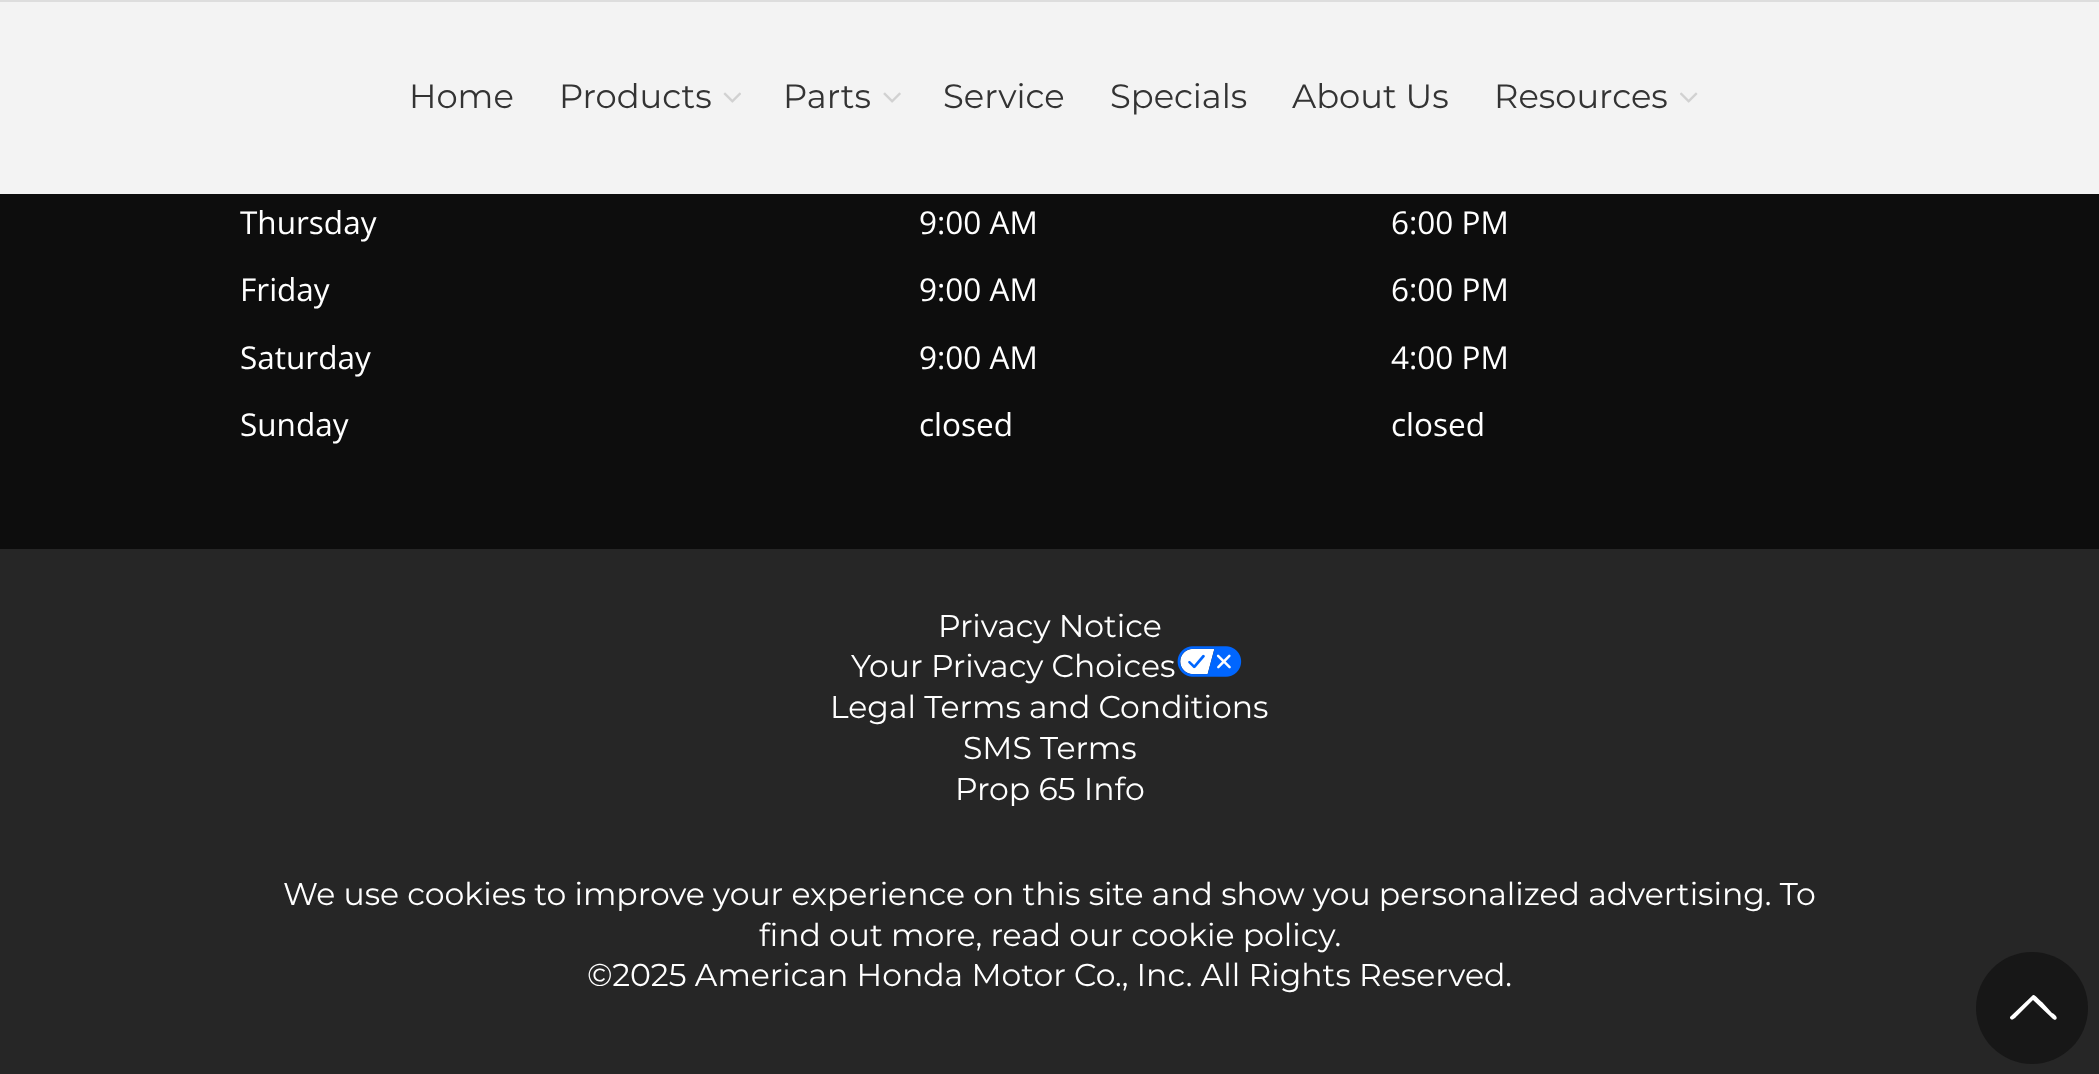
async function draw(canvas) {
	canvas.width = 2099;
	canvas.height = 1074;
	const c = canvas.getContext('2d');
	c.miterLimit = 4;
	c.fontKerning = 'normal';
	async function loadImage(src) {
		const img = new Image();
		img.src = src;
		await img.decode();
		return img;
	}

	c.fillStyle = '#0d0d0d';
	c.fillRect(0, 0, 2099, 1074);
	c.fillStyle = '#ddd';
	c.fillRect(0, 0, 2099, 2);
	c.fillStyle = '#f3f3f3';
	c.fillRect(0, 2, 2099, 192);
	c.font = '33.75px Montserrat';
	c.fillStyle = '#333';
	c.fillText('Home', 409, 108);
	c.fillText('Products', 559, 108);
	c.drawImage(await loadImage('img1.png'), 723, 92, 18, 11);
	c.fillText('Parts', 783, 108);
	c.drawImage(await loadImage('img2.png'), 883, 92, 18, 11);
	for (const [text, x, y] of [
		['Service', 943, 108],
		['Specials', 1110, 108],
		['About Us', 1292, 108],
		['Resources', 1494, 108],
	]) {
		c.fillText(text, x, y);
	}
	c.drawImage(await loadImage('img3.png'), 1680, 92, 18, 11);
	c.font = '31.5px Open Sans';
	c.fillStyle = '#fff';
	for (const [text, x, y] of [
		['Thursday', 240, 234],
		['9:00 AM', 919, 234],
		['6:00 PM', 1391, 234],
		['Friday', 240, 301],
		['9:00 AM', 919, 301],
		['6:00 PM', 1391, 301],
		['Saturday', 240, 369],
		['9:00 AM', 919, 369],
		['4:00 PM', 1391, 369],
		['Sunday', 240, 436],
		['closed', 919, 436],
		['closed', 1391, 436],
	]) {
		c.fillText(text, x, y);
	}
	c.fillStyle = '#262626';
	c.fillRect(0, 549, 2099, 525);
	c.font = '31.5px Montserrat';
	c.fillStyle = '#fff';
	c.fillText('Privacy Notice', 938, 637);
	c.fillText('Your Privacy Choices', 851, 677);
	c.drawImage(await loadImage('img4.png'), 1177, 646, 65, 31);
	for (const [text, x, y] of [
		['Legal Terms and Conditions', 830, 718],
		['SMS Terms', 963, 759],
		['Prop 65 Info', 955, 800],
		['We use cookies to improve your experience on this site and show you personalized advertising. To', 283, 905],
		['find out more, read our cookie policy.', 759, 946],
		['©2025 American Honda Motor Co., Inc. All Rights Reserved.', 587, 986],
	]) {
		c.fillText(text, x, y);
	}
	c.fillStyle = '#171717';
	c.beginPath();
	c.arc(2032, 1008, 56, 0, 2 * Math.PI);
	c.fill();
	c.fillStyle = '#fff';
	c.beginPath();
	c.moveTo(2053, 1019);
	c.lineTo(2033, 1000);
	c.lineTo(2017, 1016);
	c.bezierCurveTo(2016, 1017, 2012, 1022, 2010, 1018);
	c.lineTo(2010, 1017);
	c.lineTo(2033, 995);
	c.bezierCurveTo(2035, 994, 2040, 1001, 2042, 1002);
	c.lineTo(2052, 1013);
	c.bezierCurveTo(2053, 1013, 2060, 1018, 2055, 1020);
	c.closePath();
	c.fill();
}

draw(document.querySelector('canvas'));
